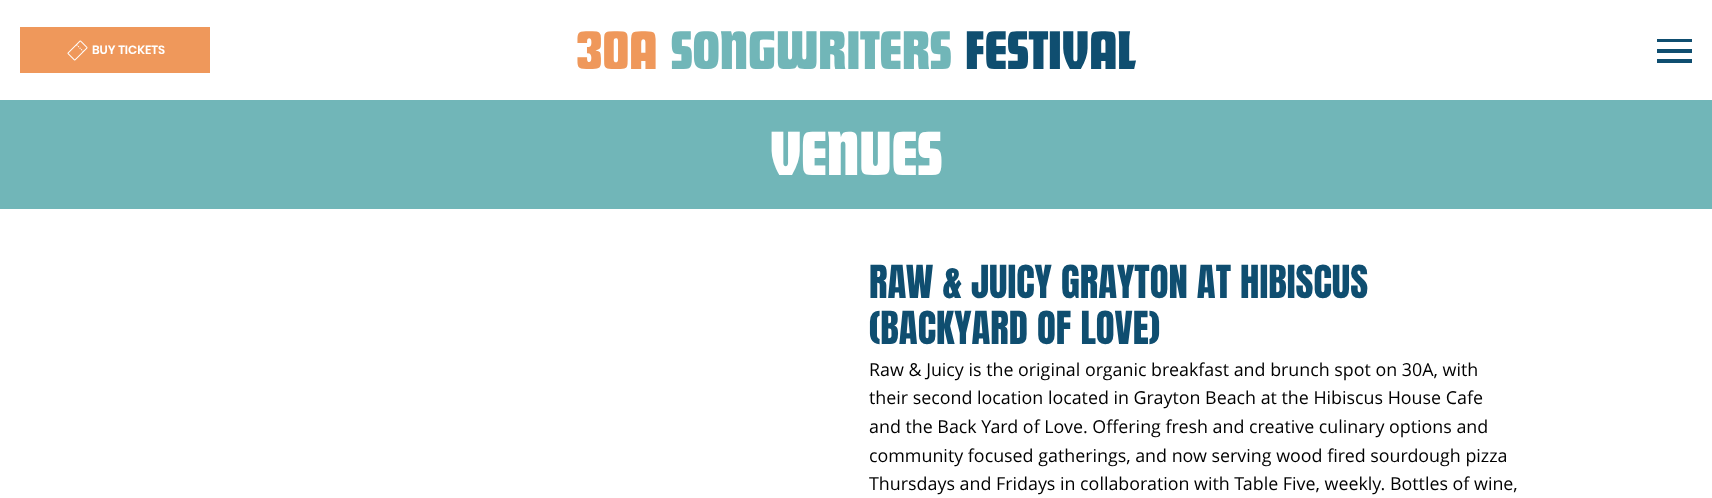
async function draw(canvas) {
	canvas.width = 1712;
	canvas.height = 498;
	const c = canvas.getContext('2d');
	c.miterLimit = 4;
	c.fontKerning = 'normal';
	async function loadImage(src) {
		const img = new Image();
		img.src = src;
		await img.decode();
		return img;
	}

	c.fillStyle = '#fff';
	c.fillRect(0, 0, 1712, 498);
	c.fillStyle = '#ef985b';
	c.fillRect(20, 27, 190, 46);
	c.drawImage(await loadImage('img1.png'), 67, 40, 21, 21);
	c.font = '600 12px Poppins';
	c.fillStyle = '#fff';
	c.fillText('BUY TICKETS', 92, 54);
	c.font = '50px "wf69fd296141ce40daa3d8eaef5"';
	c.fillStyle = '#ef985b';
	c.fillText('30A', 576, 69);
	c.fillStyle = '#71b6b8';
	c.fillText('SONGWRITERS', 671, 69);
	c.fillStyle = '#0f4e70';
	c.fillText('FESTIVAL', 965, 69);
	for (const [x, y, w, h, color] of [
		[1657, 39, 35, 3, '#0f4e70'],
		[1657, 49, 35, 4, '#0f4e70'],
		[1657, 59, 35, 4, '#0f4e70'],
		[0, 100, 1712, 109, '#71b6b8'],
	]) {
		c.fillStyle = color;
		c.fillRect(x, y, w, h);
	}
	c.font = '57.5px "wf69fd296141ce40daa3d8eaef5"';
	c.fillStyle = '#fff';
	c.fillText('VENUES', 770, 175);
	c.font = '38.75px Anton';
	c.fillStyle = '#0f4e70';
	c.fillText('RAW & JUICY GRAYTON AT HIBISCUS', 869, 298);
	c.fillText('(BACKYARD OF LOVE)', 869, 344);
	c.font = '17.85px Open Sans';
	c.fillStyle = '#000';
	for (const [text, x, y] of [
		['Raw & Juicy is the original organic breakfast and brunch spot on 30A, with', 869, 376],
		['their second location located in Grayton Beach at the Hibiscus House Cafe', 869, 404],
		['and the Back Yard of Love. Offering fresh and creative culinary options and', 869, 433],
		['community focused gatherings, and now serving wood fired sourdough pizza', 869, 462],
		['Thursdays and Fridays in collaboration with Table Five, weekly. Bottles of wine,', 869, 490],
	]) {
		c.fillText(text, x, y);
	}
}

draw(document.querySelector('canvas'));
